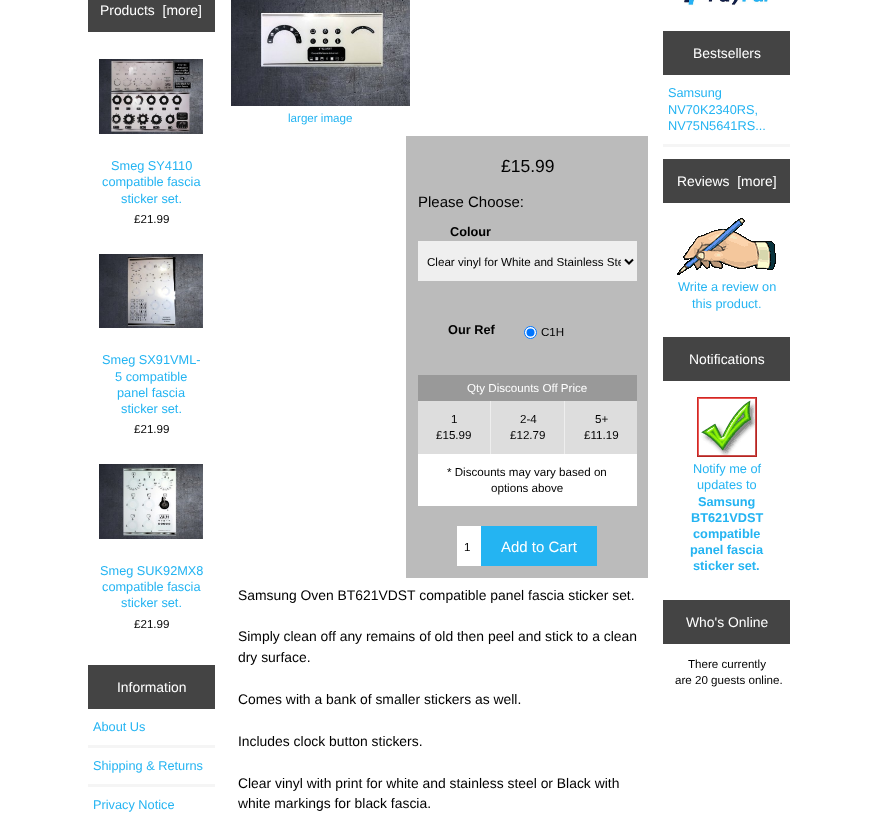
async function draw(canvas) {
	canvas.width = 878;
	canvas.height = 815;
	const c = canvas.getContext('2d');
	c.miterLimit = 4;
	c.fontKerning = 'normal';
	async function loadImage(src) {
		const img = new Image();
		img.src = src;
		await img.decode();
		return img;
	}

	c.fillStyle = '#fff';
	c.fillRect(0, 0, 878, 815);
	c.fillStyle = '#444';
	c.fillRect(88, 0, 127, 32);
	c.font = '13.9px Liberation Sans';
	c.fillStyle = '#fff';
	c.fillText('Products  [more]', 100, 15);
	c.drawImage(await loadImage('img1.png'), 99, 59, 104, 75);
	c.font = '12.75px Liberation Sans';
	c.fillStyle = '#24b4f2';
	for (const [text, x, y] of [
		['Smeg SY4110', 111, 170],
		['compatible fascia', 102, 186],
		['sticker set.', 121, 203],
	]) {
		c.fillText(text, x, y);
	}
	c.font = '11.6px Liberation Sans';
	c.fillStyle = '#000';
	c.fillText('£21.99', 134, 223);
	c.drawImage(await loadImage('img2.png'), 99, 254, 104, 74);
	c.font = '12.75px Liberation Sans';
	c.fillStyle = '#24b4f2';
	for (const [text, x, y] of [
		['Smeg SX91VML-', 102, 364],
		['5 compatible', 115, 381],
		['panel fascia', 117, 397],
		['sticker set.', 121, 413],
	]) {
		c.fillText(text, x, y);
	}
	c.font = '11.6px Liberation Sans';
	c.fillStyle = '#000';
	c.fillText('£21.99', 134, 433);
	c.drawImage(await loadImage('img3.png'), 99, 464, 104, 75);
	c.font = '12.75px Liberation Sans';
	c.fillStyle = '#24b4f2';
	for (const [text, x, y] of [
		['Smeg SUK92MX8', 100, 575],
		['compatible fascia', 102, 591],
		['sticker set.', 121, 607],
	]) {
		c.fillText(text, x, y);
	}
	c.font = '11.6px Liberation Sans';
	c.fillStyle = '#000';
	c.fillText('£21.99', 134, 628);
	c.fillStyle = '#444';
	c.fillRect(88, 665, 127, 44);
	c.font = '13.9px Liberation Sans';
	c.fillStyle = '#fff';
	c.fillText('Information', 117, 692);
	c.fillStyle = '#f5f5f5';
	c.fillRect(88, 745, 127, 3);
	c.font = '12.75px Liberation Sans';
	c.fillStyle = '#24b4f2';
	c.fillText('About Us', 93, 731);
	c.fillStyle = '#f5f5f5';
	c.fillRect(88, 784, 127, 3);
	c.fillStyle = '#24b4f2';
	c.fillText('Shipping & Returns', 93, 770);
	c.fillText('Privacy Notice', 93, 809);
	c.drawImage(await loadImage('img4.png'), 231, 0, 179, 106);
	c.font = '11.6px Liberation Sans';
	c.fillText('larger image', 288, 122);
	c.fillStyle = '#bbb';
	c.fillRect(406, 136, 242, 442);
	c.font = '17.5px Liberation Sans';
	c.fillStyle = '#000';
	c.fillText('£15.99', 501, 172);
	c.font = '15px Liberation Sans';
	c.fillText('Please Choose:', 418, 207);
	c.font = 'bold 12.75px Liberation Sans';
	c.fillText('Colour', 450, 236);
	c.fillStyle = '#efefef';
	c.fillRect(418, 241, 219, 40);
	c.beginPath();
	c.moveTo(625, 259.5);
	c.lineTo(629, 263.5);
	c.lineTo(633, 259.5);
	c.strokeStyle = '#000';
	c.lineWidth = 2;
	c.stroke();
	c.save();
	c.beginPath();
	c.rect(427, 254, 194, 15);
	c.clip();
	c.font = '11.6px Liberation Sans';
	c.fillStyle = '#000';
	c.fillText('Clear vinyl for White and Stainless Ste', 427, 266);
	c.restore();
	c.fillStyle = '#000';
	c.fillText('Our Ref', 448, 334);
	c.fillStyle = '#fff';
	c.beginPath();
	c.arc(530.5, 332.5, 6, 0, 2 * Math.PI);
	c.fill();
	c.strokeStyle = '#0075ff';
	c.lineWidth = 1;
	c.stroke();
	c.fillStyle = '#0075ff';
	c.beginPath();
	c.arc(530.5, 332.5, 4, 0, 2 * Math.PI);
	c.fill();
	c.font = '11.6px Liberation Sans';
	c.fillStyle = '#000';
	c.fillText('C1H', 541, 336);
	c.fillStyle = '#fff';
	c.fillRect(418, 454, 219, 52);
	c.fillStyle = '#999';
	c.fillRect(418, 375, 219, 26);
	c.fillStyle = '#fff';
	c.fillText('Qty Discounts Off Price', 467, 392);
	c.fillStyle = '#ddd';
	c.fillRect(418, 401, 219, 53);
	c.fillStyle = '#eee';
	c.fillRect(490, 401, 1, 53);
	c.fillStyle = '#000';
	c.fillText('1', 451, 423);
	c.fillText('£15.99', 436, 439);
	c.fillStyle = '#eee';
	c.fillRect(564, 401, 1, 53);
	c.fillStyle = '#000';
	for (const [text, x, y] of [
		['2-4', 520, 423],
		['£12.79', 510, 439],
		['5+', 595, 423],
		['£11.19', 584, 439],
		['* Discounts may vary based on', 447, 476],
		['options above', 491, 492],
	]) {
		c.fillText(text, x, y);
	}
	c.fillStyle = '#fff';
	c.fillRect(457, 526, 24, 40);
	c.fillStyle = '#000';
	c.fillText('1', 464, 551);
	c.fillStyle = '#24b4f2';
	c.fillRect(481, 526, 116, 40);
	c.font = '15px Liberation Sans';
	c.fillStyle = '#fff';
	c.fillText('Add to Cart', 501, 552);
	c.font = '13.9px Liberation Sans';
	c.fillStyle = '#000';
	for (const [text, x, y] of [
		['Samsung Oven BT621VDST compatible panel fascia sticker set.', 238, 600],
		['Simply clean off any remains of old then peel and stick to a clean', 238, 641],
		['dry surface.', 238, 662],
		['Comes with a bank of smaller stickers as well.', 238, 704],
		['Includes clock button stickers.', 238, 746],
		['Clear vinyl with print for white and stainless steel or Black with', 238, 788],
		['white markings for black fascia.', 238, 808],
	]) {
		c.fillText(text, x, y);
	}
	c.drawImage(await loadImage('img5.png'), 683, 0, 85, 6);
	c.fillStyle = '#444';
	c.fillRect(663, 31, 127, 44);
	c.fillStyle = '#fff';
	c.fillText('Bestsellers', 693, 58);
	c.fillStyle = '#f5f5f5';
	c.fillRect(663, 144, 127, 3);
	c.font = '12.75px Liberation Sans';
	c.fillStyle = '#24b4f2';
	for (const [text, x, y] of [
		['Samsung', 668, 97],
		['NV70K2340RS,', 668, 114],
		['NV75N5641RS...', 668, 130],
	]) {
		c.fillText(text, x, y);
	}
	c.fillStyle = '#444';
	c.fillRect(663, 159, 127, 44);
	c.font = '13.9px Liberation Sans';
	c.fillStyle = '#fff';
	c.fillText('Reviews  [more]', 677, 186);
	c.drawImage(await loadImage('img6.png'), 677, 218, 99, 57);
	c.font = '12.75px Liberation Sans';
	c.fillStyle = '#24b4f2';
	c.fillText('Write a review on', 678, 291);
	c.fillText('this product.', 692, 308);
	c.fillStyle = '#444';
	c.fillRect(663, 337, 127, 44);
	c.font = '13.9px Liberation Sans';
	c.fillStyle = '#fff';
	c.fillText('Notifications', 689, 364);
	c.drawImage(await loadImage('img7.png'), 697, 397, 60, 60);
	c.font = '12.75px Liberation Sans';
	c.fillStyle = '#24b4f2';
	c.fillText('Notify me of', 693, 473);
	c.fillText('updates to', 697, 489);
	c.font = 'bold 12.75px Liberation Sans';
	for (const [text, x, y] of [
		['Samsung', 698, 506],
		['BT621VDST', 691, 522],
		['compatible', 693, 538],
		['panel fascia', 690, 554],
		['sticker set.', 693, 570],
	]) {
		c.fillText(text, x, y);
	}
	c.fillStyle = '#444';
	c.fillRect(663, 600, 127, 44);
	c.font = '13.9px Liberation Sans';
	c.fillStyle = '#fff';
	c.fillText('Who\'s Online', 686, 627);
	c.font = '11.6px Liberation Sans';
	c.fillStyle = '#000';
	c.fillText('There currently', 688, 668);
	c.fillText('are 20 guests online.', 675, 684);
}

draw(document.querySelector('canvas'));
